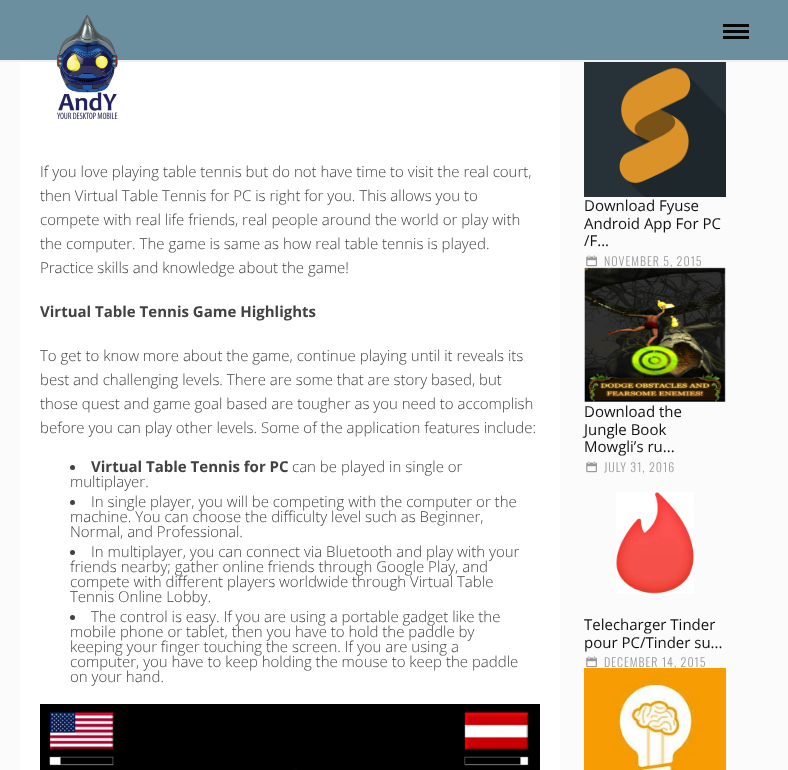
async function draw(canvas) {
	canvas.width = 788;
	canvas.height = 770;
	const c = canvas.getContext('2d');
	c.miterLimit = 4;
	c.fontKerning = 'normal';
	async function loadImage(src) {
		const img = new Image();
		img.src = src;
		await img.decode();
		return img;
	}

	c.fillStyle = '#fbfbfb';
	c.fillRect(0, 0, 788, 770);
	for (const [x, y, w, h, color] of [
		[0, 0, 788, 60, '#6c8fa0'],
		[0, 60, 788, 2, '#f0f0f0'],
		[20, 62, 540, 708, '#fff'],
	]) {
		c.fillStyle = color;
		c.fillRect(x, y, w, h);
	}
	c.drawImage(await loadImage('img1.png'), 56, 15, 62, 104);
	for (const [x, y, w, h, color] of [
		[723, 24, 26, 3, '#060606'],
		[723, 30, 26, 3, '#060606'],
		[723, 36, 26, 3, '#060606'],
	]) {
		c.fillStyle = color;
		c.fillRect(x, y, w, h);
	}
	c.font = '300 15px Open Sans';
	c.fillStyle = '#424242';
	for (const [text, x, y] of [
		['If you love playing table tennis but do not have time to visit the real court,', 40, 177],
		['then Virtual Table Tennis for PC is right for you. This allows you to', 40, 201],
		['compete with real life friends, real people around the world or play with', 40, 225],
		['the computer. The game is same as how real table tennis is played.', 40, 249],
		['Practice skills and knowledge about the game!', 40, 273],
	]) {
		c.fillText(text, x, y);
	}
	c.font = 'bold 15px Open Sans';
	c.fillText('Virtual Table Tennis Game Highlights', 40, 317);
	c.font = '300 15px Open Sans';
	for (const [text, x, y] of [
		['To get to know more about the game, continue playing until it reveals its', 40, 361],
		['best and challenging levels. There are some that are story based, but', 40, 385],
		['those quest and game goal based are tougher as you need to accomplish', 40, 409],
		['before you can play other levels. Some of the application features include:', 40, 433],
	]) {
		c.fillText(text, x, y);
	}
	c.beginPath();
	c.arc(72.5, 467.5, 2.5, 0, 2 * Math.PI);
	c.fill();
	c.font = 'bold 15px Open Sans';
	c.fillText('Virtual Table Tennis for PC', 91, 472);
	c.font = '300 15px Open Sans';
	c.fillText('can be played in single or', 292, 472);
	c.fillText('multiplayer.', 70, 487);
	c.beginPath();
	c.arc(72.5, 502.5, 2.5, 0, 2 * Math.PI);
	c.fill();
	for (const [text, x, y] of [
		['In single player, you will be competing with the computer or the', 91, 507],
		['machine. You can choose the difficulty level such as Beginner,', 70, 522],
		['Normal, and Professional.', 70, 537],
	]) {
		c.fillText(text, x, y);
	}
	c.beginPath();
	c.arc(72.5, 552.5, 2.5, 0, 2 * Math.PI);
	c.fill();
	for (const [text, x, y] of [
		['In multiplayer, you can connect via Bluetooth and play with your', 91, 557],
		['friends nearby; gather online friends through Google Play, and', 70, 572],
		['compete with different players worldwide through Virtual Table', 70, 587],
		['Tennis Online Lobby.', 70, 602],
	]) {
		c.fillText(text, x, y);
	}
	c.beginPath();
	c.arc(72.5, 617.5, 2.5, 0, 2 * Math.PI);
	c.fill();
	for (const [text, x, y] of [
		['The control is easy. If you are using a portable gadget like the', 91, 622],
		['mobile phone or tablet, then you have to hold the paddle by', 70, 637],
		['keeping your finger touching the screen. If you are using a', 70, 652],
		['computer, you have to keep holding the mouse to keep the paddle', 70, 667],
		['on your hand.', 70, 682],
	]) {
		c.fillText(text, x, y);
	}
	c.drawImage(await loadImage('img2.png'), 40, 704, 500, 66);
	c.drawImage(await loadImage('img3.png'), 584, 62, 142, 135);
	c.font = '15px Open Sans';
	c.fillStyle = '#111';
	for (const [text, x, y] of [
		['Download Fyuse', 584, 211],
		['Android App For PC', 584, 229],
		['/F...', 584, 246],
	]) {
		c.fillText(text, x, y);
	}
	c.drawImage(await loadImage('img4.png'), 586, 255, 11, 12);
	c.letterSpacing = '1px';
	c.font = '300 12px Oswald';
	c.fillStyle = '#999';
	c.fillText('NOVEMBER 5, 2015', 604, 266);
	c.drawImage(await loadImage('img5.png'), 584, 267, 142, 135);
	c.letterSpacing = '0px';
	c.font = '15px Open Sans';
	c.fillStyle = '#111';
	for (const [text, x, y] of [
		['Download the', 584, 417],
		['Jungle Book', 584, 435],
		['Mowgli’s ru...', 584, 452],
	]) {
		c.fillText(text, x, y);
	}
	c.drawImage(await loadImage('img4.png'), 586, 461, 11, 12);
	c.letterSpacing = '1px';
	c.font = '300 12px Oswald';
	c.fillStyle = '#999';
	c.fillText('JULY 31, 2016', 604, 472);
	c.drawImage(await loadImage('img6.png'), 616, 492, 78, 102);
	c.letterSpacing = '0px';
	c.font = '15px Open Sans';
	c.fillStyle = '#111';
	c.fillText('Telecharger Tinder', 584, 630);
	c.fillText('pour PC/Tinder su...', 584, 648);
	c.drawImage(await loadImage('img4.png'), 586, 656, 11, 12);
	c.letterSpacing = '1px';
	c.font = '300 12px Oswald';
	c.fillStyle = '#999';
	c.fillText('DECEMBER 14, 2015', 604, 667);
	c.drawImage(await loadImage('img7.png'), 584, 668, 142, 102);
}

draw(document.querySelector('canvas'));
